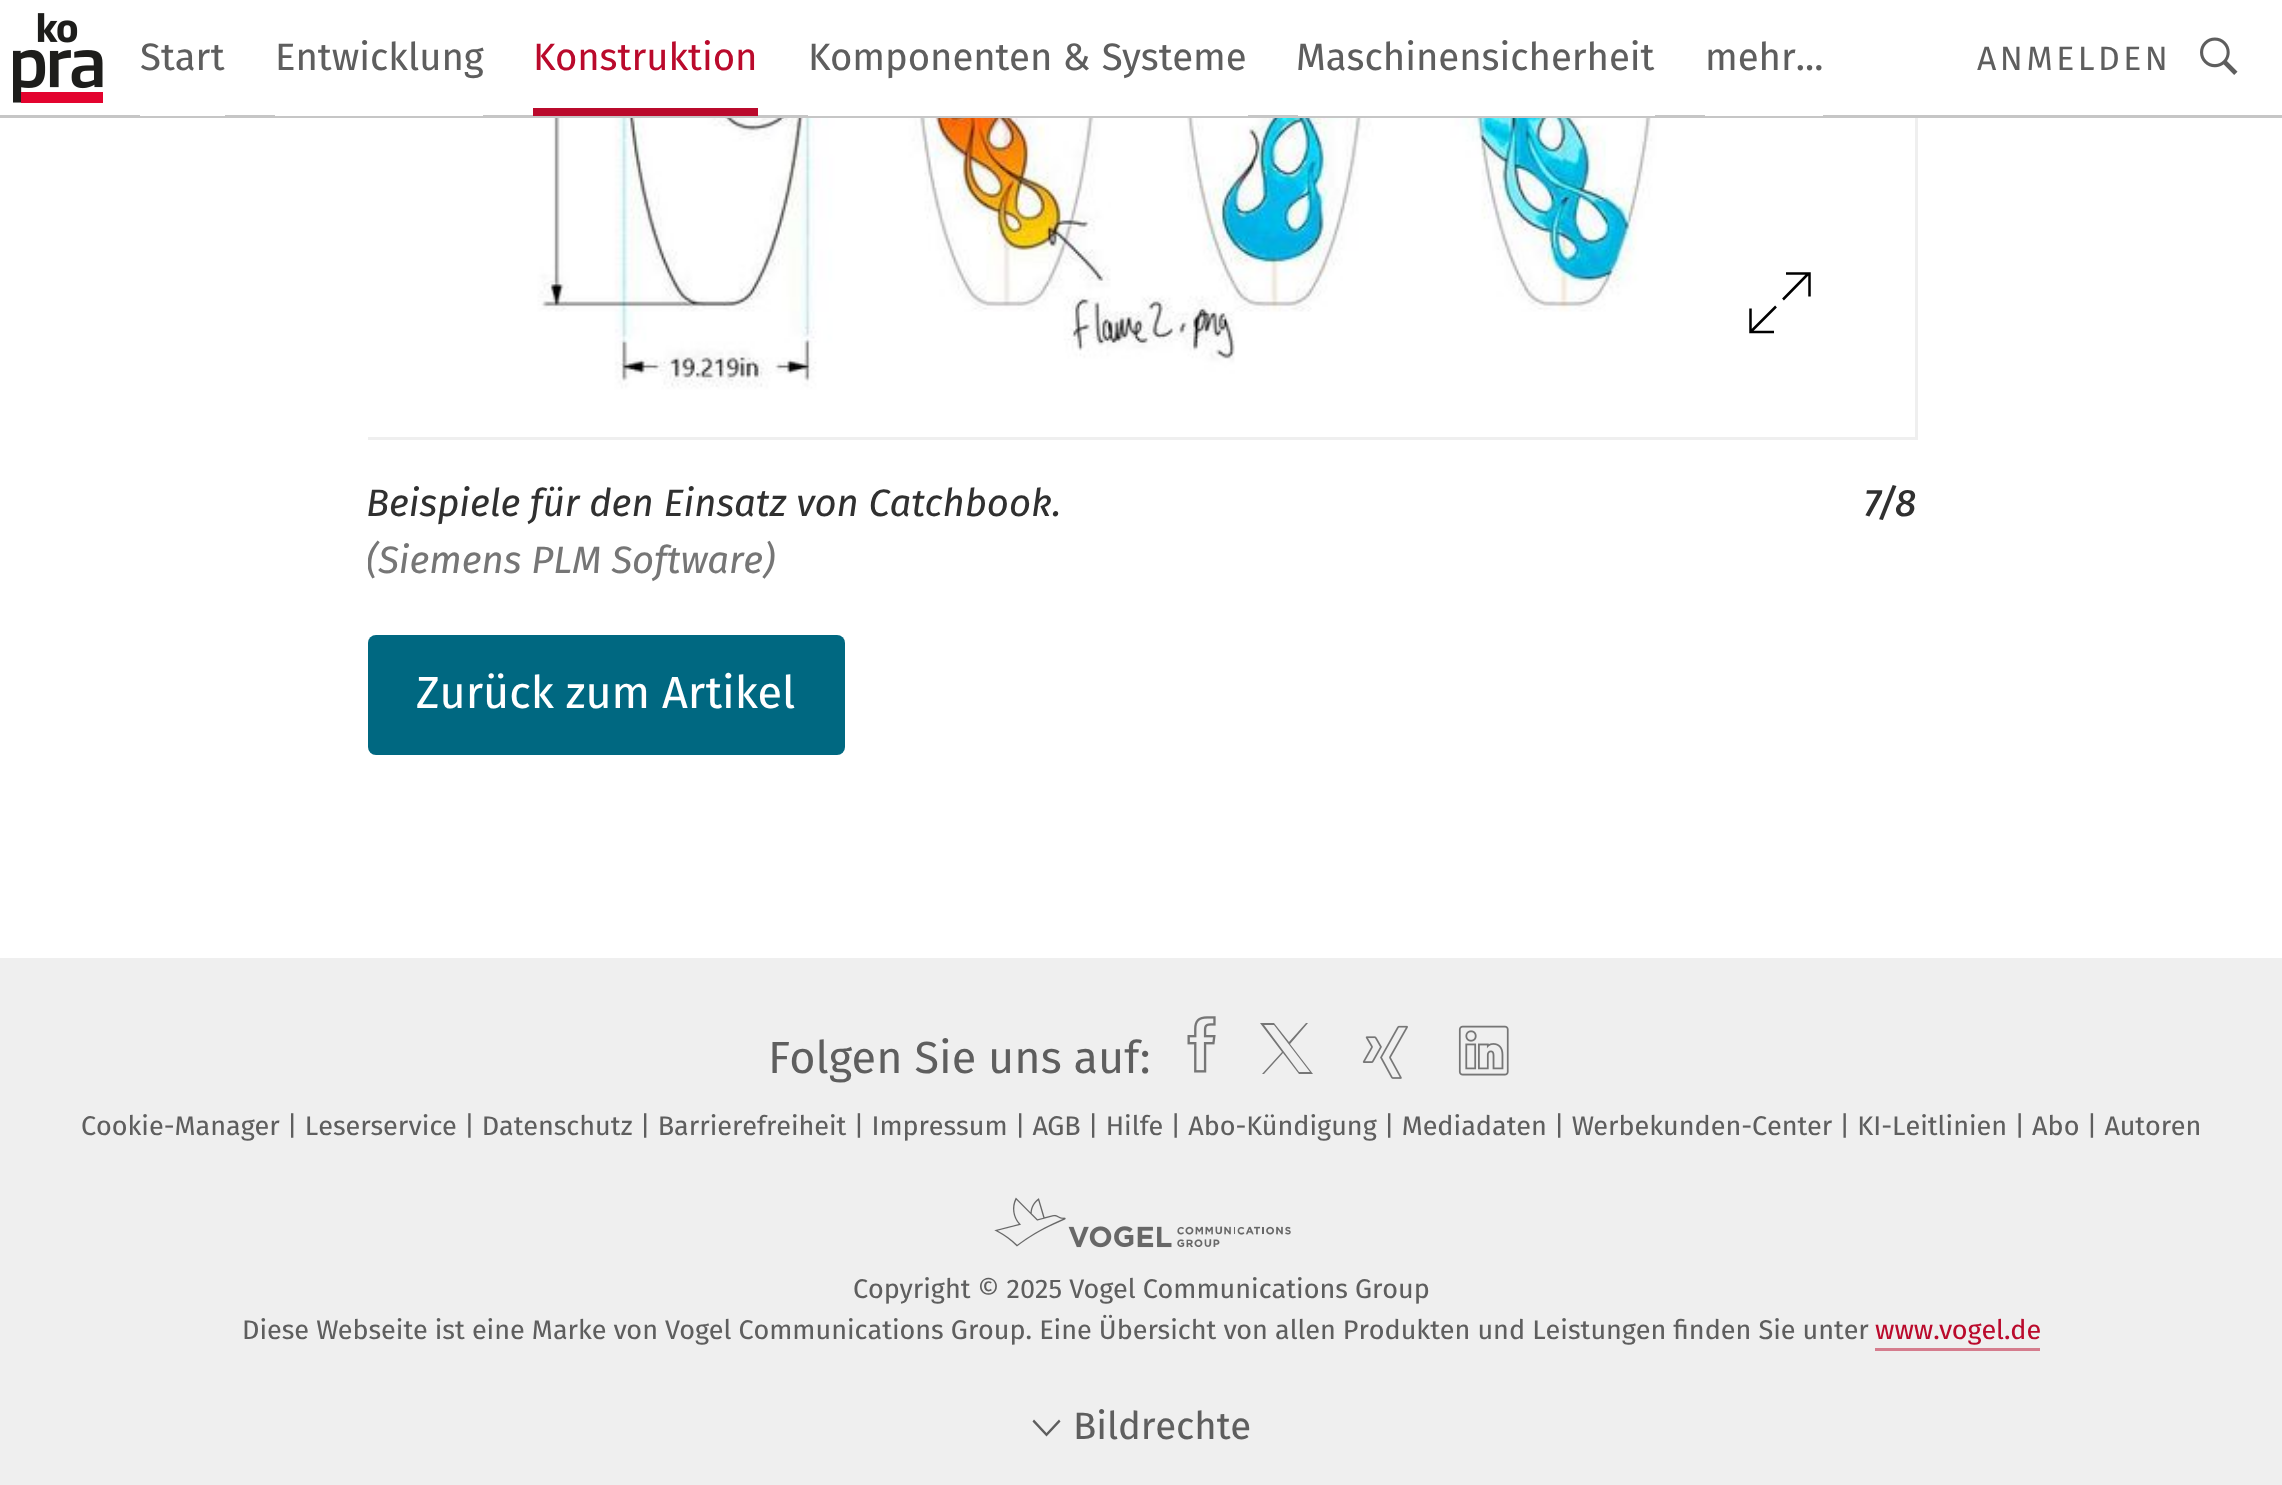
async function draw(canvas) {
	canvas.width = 2282;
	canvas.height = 1485;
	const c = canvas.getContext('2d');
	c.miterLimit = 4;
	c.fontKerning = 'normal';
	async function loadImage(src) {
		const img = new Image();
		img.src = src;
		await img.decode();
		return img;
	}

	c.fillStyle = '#fff';
	c.fillRect(0, 0, 2282, 1485);
	c.fillStyle = '#c6c6c6';
	c.fillRect(0, 115, 2282, 3);
	c.drawImage(await loadImage('img1.png'), 13, 13, 90, 90);
	c.fillStyle = '#fff';
	c.fillRect(140, 115, 85, 1);
	c.font = '38.25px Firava';
	c.fillStyle = '#5e5e5e';
	c.fillText('Start', 140, 70);
	c.fillStyle = '#fff';
	c.fillRect(275, 115, 208, 1);
	c.fillStyle = '#5e5e5e';
	c.fillText('Entwicklung', 275, 70);
	c.fillStyle = '#ba0a2c';
	c.fillRect(533, 108, 225, 8);
	c.fillText('Konstruktion', 533, 70);
	c.fillStyle = '#fff';
	c.fillRect(808, 115, 440, 1);
	c.fillStyle = '#5e5e5e';
	c.fillText('Komponenten & Systeme', 808, 70);
	c.fillStyle = '#fff';
	c.fillRect(1298, 115, 357, 1);
	c.fillStyle = '#5e5e5e';
	c.fillText('Maschinensicherheit', 1296, 70);
	c.fillStyle = '#fff';
	c.fillRect(1705, 115, 118, 1);
	c.fillStyle = '#5e5e5e';
	c.fillText('mehr...', 1705, 70);
	c.letterSpacing = '3.5px';
	c.font = '33.75px "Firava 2"';
	c.fillText('ANMELDEN', 1977, 70);
	c.drawImage(await loadImage('img2.png'), 2200, 37, 38, 38);
	c.fillStyle = '#efefef';
	c.fillRect(368, 118, 1550, 322);
	c.drawImage(await loadImage('img3.png'), 368, 118, 1547, 319);
	c.beginPath();
	c.moveTo(1809.5, 296.5);
	c.lineTo(1809.5, 273.5);
	c.lineTo(1786, 273.5);
	c.moveTo(1750.5, 308.5);
	c.lineTo(1750.5, 332);
	c.lineTo(1774, 332);
	c.moveTo(1808, 274);
	c.lineTo(1783, 299.5);
	c.moveTo(1776, 306.5);
	c.lineTo(1751, 331.5);
	c.strokeStyle = '#000';
	c.lineWidth = 2.5;
	c.stroke();
	c.letterSpacing = '0px';
	c.font = 'italic 38.25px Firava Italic';
	c.fillStyle = '#303030';
	c.fillText('Beispiele für den Einsatz von Catchbook.', 366, 516);
	c.save();
	c.beginPath();
	c.rect(368, 0, 1550, 590);
	c.clip();
	c.fillStyle = '#767676';
	c.fillText('(Siemens PLM Software)', 366, 573);
	c.restore();
	c.font = 'italic 500 38.25px Firava Italic';
	c.fillText('7/8', 1864, 516);
	c.fillStyle = '#006881';
	c.beginPath();
	c.roundRect(368, 635, 477, 120, 8);
	c.fill();
	c.font = '45px Firava';
	c.fillStyle = '#fff';
	c.fillText('Zurück zum Artikel', 416, 708);
	c.fillStyle = '#efefef';
	c.fillRect(0, 958, 2282, 527);
	c.font = '45px "Firava 2"';
	c.fillStyle = '#5e5e5e';
	c.fillText('Folgen Sie uns auf:', 768, 1073);
	c.drawImage(await loadImage('img4.png'), 1187, 1016, 29, 57);
	c.fillStyle = '#767676';
	c.beginPath();
	c.moveTo(1262, 1074);
	c.lineTo(1264, 1074);
	c.lineTo(1283, 1053);
	c.lineTo(1299, 1074);
	c.lineTo(1313, 1074);
	c.lineTo(1290, 1044);
	c.lineTo(1308, 1023);
	c.lineTo(1306, 1023);
	c.lineTo(1289, 1042);
	c.lineTo(1274, 1023);
	c.lineTo(1260, 1023);
	c.lineTo(1282, 1052);
	c.closePath();
	c.moveTo(1264, 1025);
	c.lineTo(1274, 1025);
	c.lineTo(1310, 1072);
	c.lineTo(1299, 1072);
	c.closePath();
	c.fill();
	c.drawImage(await loadImage('img5.png'), 1362, 1025, 46, 54);
	c.drawImage(await loadImage('img6.png'), 1458, 1025, 51, 51);
	c.font = '27px Firava';
	c.fillStyle = '#5e5e5e';
	c.fillText('Cookie-Manager | Leserservice | Datenschutz | Barrierefreiheit | Impressum | AGB | Hilfe | Abo-Kündigung | Mediadaten | Werbekunden-Center | KI-Leitlinien | Abo | Autoren', 81, 1135);
	c.drawImage(await loadImage('img7.png'), 994, 1197, 297, 51);
	c.fillText('Copyright © 2025 Vogel Communications Group', 853, 1298);
	c.fillText('Diese Webseite ist eine Marke von Vogel Communications Group. Eine Übersicht von allen Produkten und Leistungen finden Sie unter', 242, 1339);
	c.fillStyle = '#ba0a2c';
	c.fillText('www.vogel.de', 1875, 1339);
	c.fillStyle = '#d57d8e';
	c.fillRect(1875, 1348, 165, 3);
	c.fillStyle = '#5e5e5e';
	c.beginPath();
	c.moveTo(1059, 1419.5);
	c.lineTo(1060.5, 1421.5);
	c.lineTo(1046.5, 1436.5);
	c.lineTo(1032.5, 1421.5);
	c.lineTo(1034, 1419.5);
	c.lineTo(1046.5, 1433);
	c.closePath();
	c.fill();
	c.font = '38.25px Firava';
	c.fillText('Bildrechte', 1073, 1439);
}

draw(document.querySelector('canvas'));
